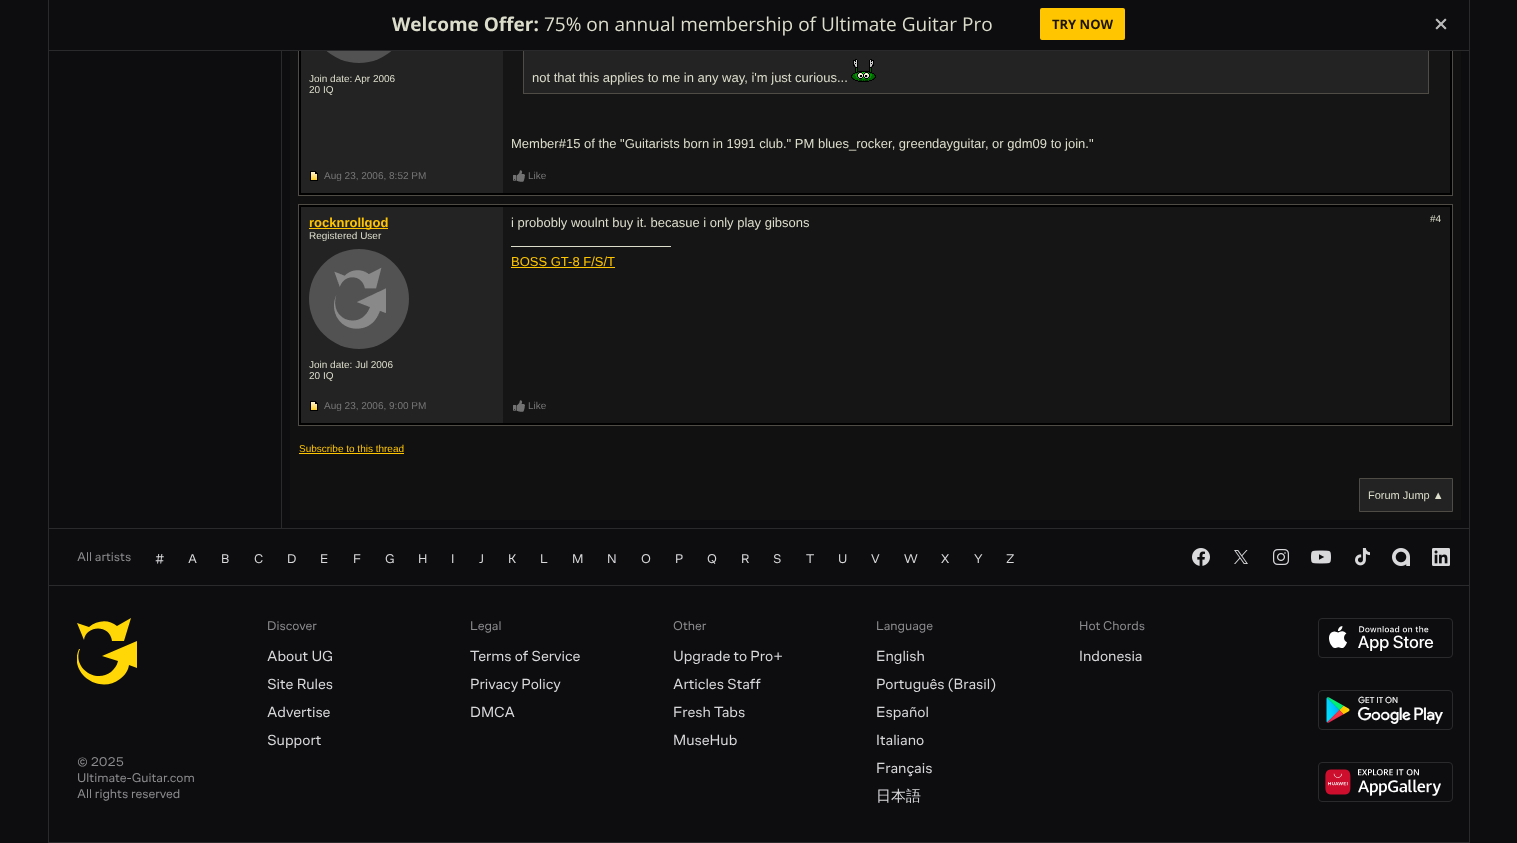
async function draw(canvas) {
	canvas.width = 1517;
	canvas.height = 843;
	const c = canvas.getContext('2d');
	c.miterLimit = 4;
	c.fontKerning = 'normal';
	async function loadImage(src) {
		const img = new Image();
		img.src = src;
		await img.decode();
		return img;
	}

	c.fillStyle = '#0d0d10';
	c.fillRect(0, 0, 1517, 843);
	for (const [x, y, w, h, color] of [
		[48, 0, 1, 843, '#2a2a2d'],
		[290, 51, 1171, 469, '#111'],
		[503, 51, 947, 142, '#151515'],
	]) {
		c.fillStyle = color;
		c.fillRect(x, y, w, h);
	}
	c.strokeStyle = '#000';
	c.lineWidth = 2;
	c.strokeRect(300, -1, 1151, 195);
	c.strokeStyle = '#4f4c46';
	c.lineWidth = 1;
	c.strokeRect(298.5, -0.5, 1154, 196);
	c.fillStyle = '#232323';
	c.fillRect(524, 51, 904, 42);
	c.strokeRect(523.5, -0.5, 905, 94);
	c.fillStyle = '#0d0d10';
	c.fillRect(298, 0, 1155, 50);
	c.fillStyle = '#2a2a2d';
	c.fillRect(49, 50, 1420, 1);
	c.font = 'bold 19px Open Sans';
	c.fillStyle = '#ddc';
	c.fillText('Welcome Offer:', 392, 31);
	c.font = '19px Open Sans';
	c.fillText('75% on annual membership of Ultimate Guitar Pro', 544, 31);
	c.fillStyle = '#ffc600';
	c.beginPath();
	c.roundRect(1040, 8, 85, 32, 2);
	c.fill();
	c.font = 'bold 13px Open Sans';
	c.fillStyle = '#1a1400';
	c.fillText('TRY NOW', 1052, 29);
	c.drawImage(await loadImage('img1.png'), 1435, 18, 12, 12);
	for (const [x, y, w, h, color] of [
		[1469, 0, 1, 843, '#2a2a2d'],
		[281, 51, 1, 477, '#2a2a2d'],
		[301, 51, 202, 142, '#232323'],
	]) {
		c.fillStyle = color;
		c.fillRect(x, y, w, h);
	}
	c.drawImage(await loadImage('img2.png'), 326, 51, 66, 12);
	c.font = '10px Liberation Sans';
	c.fillStyle = '#ddc';
	c.fillText('Join date: Apr 2006', 309, 82);
	c.fillText('20 IQ', 309, 93);
	c.font = '13px Liberation Sans';
	c.fillText('not that this applies to me in any way, i\'m just curious...', 532, 82);
	c.drawImage(await loadImage('img3.png'), 851, 59, 25, 23);
	c.fillText('Member#15 of the "Guitarists born in 1991 club." PM blues_rocker, greendayguitar, or gdm09 to join."', 511, 148);
	c.drawImage(await loadImage('img4.png'), 310, 171, 8, 10);
	c.font = '10px Liberation Sans';
	c.fillStyle = '#777';
	c.fillText('Aug 23, 2006, 8:52 PM', 324, 179);
	c.drawImage(await loadImage('img5.png'), 513, 170, 12, 12);
	c.fillText('Like', 528, 179);
	c.fillStyle = '#151515';
	c.fillRect(503, 207, 947, 216);
	c.strokeStyle = '#000';
	c.lineWidth = 2;
	c.strokeRect(300, 206, 1151, 218);
	c.strokeStyle = '#4f4c46';
	c.lineWidth = 1;
	c.strokeRect(298.5, 204.5, 1154, 221);
	c.fillStyle = '#232323';
	c.fillRect(301, 207, 202, 216);
	c.fillStyle = '#ffc600';
	c.fillRect(309, 228, 79, 1);
	c.font = 'bold 13px Liberation Sans';
	c.fillText('rocknrollgod', 309, 227);
	c.font = '10px Liberation Sans';
	c.fillStyle = '#ddc';
	c.fillText('Registered User', 309, 239);
	c.drawImage(await loadImage('img6.png'), 309, 249, 100, 100);
	c.fillText('Join date: Jul 2006', 309, 368);
	c.fillText('20 IQ', 309, 379);
	c.font = '13px Liberation Sans';
	c.fillText('i probobly woulnt buy it. becasue i only play gibsons', 511, 227);
	c.fillRect(511, 246, 160, 1);
	c.fillStyle = '#ffc600';
	c.fillText('BOSS GT-8 F/S/T', 511, 266);
	c.fillRect(511, 267, 104, 1);
	c.font = '10px Liberation Sans';
	c.fillStyle = '#ddc';
	c.fillText('#4', 1430, 222);
	c.drawImage(await loadImage('img4.png'), 310, 401, 8, 10);
	c.fillStyle = '#777';
	c.fillText('Aug 23, 2006, 9:00 PM', 324, 409);
	c.drawImage(await loadImage('img7.png'), 513, 400, 12, 12);
	c.fillText('Like', 528, 409);
	c.fillStyle = '#ffc600';
	c.fillText('Subscribe to this thread', 299, 452);
	c.fillRect(299, 453, 105, 1);
	c.fillStyle = '#232323';
	c.beginPath();
	c.rect(1359.5, 478.5, 93, 33);
	c.fill();
	c.stroke();
	c.font = '11px Liberation Sans';
	c.fillStyle = '#ddc';
	c.fillText('Forum Jump ▲', 1368, 499);
	c.fillStyle = '#2a2a2d';
	c.fillRect(49, 528, 1420, 1);
	c.fillRect(49, 842, 1420, 1);
	c.font = '13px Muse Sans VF';
	c.fillStyle = '#8c8c8f';
	c.fillText('All artists', 77, 561);
	c.fillStyle = '#d9d9dc';
	for (const [text, x, y] of [
		['#', 155, 563],
		['A', 188, 563],
		['B', 221, 563],
		['C', 254, 563],
		['D', 287, 563],
		['E', 320, 563],
		['F', 353, 563],
		['G', 385, 563],
		['H', 418, 563],
		['I', 451, 563],
		['J', 479, 563],
		['K', 508, 563],
		['L', 540, 563],
		['M', 572, 563],
		['N', 607, 563],
		['O', 641, 563],
		['P', 675, 563],
		['Q', 707, 563],
		['R', 741, 563],
		['S', 773, 563],
		['T', 806, 563],
		['U', 838, 563],
		['V', 871, 563],
		['W', 904, 563],
		['X', 941, 563],
		['Y', 974, 563],
		['Z', 1006, 563],
	]) {
		c.fillText(text, x, y);
	}
	c.drawImage(await loadImage('img8.png'), 1192, 548, 18, 18);
	c.drawImage(await loadImage('img9.png'), 1234, 550, 14, 14);
	c.drawImage(await loadImage('img10.png'), 1273, 549, 16, 16);
	c.drawImage(await loadImage('img11.png'), 1311, 550, 20, 14);
	c.drawImage(await loadImage('img12.png'), 1355, 548, 15, 18);
	c.drawImage(await loadImage('img13.png'), 1392, 548, 18, 18);
	c.drawImage(await loadImage('img14.png'), 1432, 548, 18, 18);
	c.fillStyle = '#2a2a2d';
	c.fillRect(49, 585, 1420, 1);
	c.fillStyle = '#8c8c8f';
	c.fillText('Discover', 267, 630);
	c.font = '15px Muse Sans VF';
	c.fillStyle = '#d9d9dc';
	for (const [text, x, y] of [
		['About UG', 267, 661],
		['Site Rules', 267, 689],
		['Advertise', 267, 717],
		['Support', 267, 745],
	]) {
		c.fillText(text, x, y);
	}
	c.font = '13px Muse Sans VF';
	c.fillStyle = '#8c8c8f';
	c.fillText('Legal', 470, 630);
	c.font = '15px Muse Sans VF';
	c.fillStyle = '#d9d9dc';
	for (const [text, x, y] of [
		['Terms of Service', 470, 661],
		['Privacy Policy', 470, 689],
		['DMCA', 470, 717],
	]) {
		c.fillText(text, x, y);
	}
	c.font = '13px Muse Sans VF';
	c.fillStyle = '#8c8c8f';
	c.fillText('Other', 673, 630);
	c.font = '15px Muse Sans VF';
	c.fillStyle = '#d9d9dc';
	for (const [text, x, y] of [
		['Upgrade to Pro+', 673, 661],
		['Articles Staff', 673, 689],
		['Fresh Tabs', 673, 717],
		['MuseHub', 673, 745],
	]) {
		c.fillText(text, x, y);
	}
	c.font = '13px Muse Sans VF';
	c.fillStyle = '#8c8c8f';
	c.fillText('Language', 876, 630);
	c.font = '15px Muse Sans VF';
	c.fillStyle = '#d9d9dc';
	for (const [text, x, y] of [
		['English', 876, 661],
		['Português (Brasil)', 876, 689],
		['Español', 876, 717],
		['Italiano', 876, 745],
		['Français', 876, 773],
	]) {
		c.fillText(text, x, y);
	}
	c.font = '500 15px WenQuanYi Zen Hei';
	c.fillText('日本語', 876, 801);
	c.font = '13px Muse Sans VF';
	c.fillStyle = '#8c8c8f';
	c.fillText('Hot Chords', 1079, 630);
	c.font = '15px Muse Sans VF';
	c.fillStyle = '#d9d9dc';
	c.fillText('Indonesia', 1079, 661);
	c.beginPath();
	c.roundRect(1318.5, 618.5, 134, 39, 3.5);
	c.strokeStyle = '#2a2a2d';
	c.stroke();
	c.drawImage(await loadImage('img15.png'), 1329, 626, 105, 25);
	c.beginPath();
	c.roundRect(1318.5, 690.5, 134, 39, 3.5);
	c.stroke();
	c.drawImage(await loadImage('img16.png'), 1326, 696, 117, 28);
	c.beginPath();
	c.roundRect(1318.5, 762.5, 134, 39, 3.5);
	c.stroke();
	c.drawImage(await loadImage('img17.png'), 1325, 769, 116, 27);
	c.save();
	c.beginPath();
	c.rect(77, 618, 60, 67);
	c.clip();
	c.fillStyle = '#ffd706';
	c.beginPath();
	c.moveTo(84, 640);
	c.bezierCurveTo(86, 625, 110, 624, 112, 641);
	c.lineTo(124, 641);
	c.lineTo(131, 618);
	c.lineTo(117, 626);
	c.bezierCurveTo(109, 619, 97, 620, 89, 627);
	c.lineTo(77, 623);
	c.closePath();
	c.moveTo(102, 656);
	c.lineTo(118, 661);
	c.bezierCurveTo(117, 666, 114, 669, 111, 672);
	c.bezierCurveTo(95, 684, 72, 667, 80, 649);
	c.lineTo(79, 649);
	c.bezierCurveTo(68, 673, 99, 695, 120, 679);
	c.bezierCurveTo(125, 675, 128, 671, 129, 665);
	c.lineTo(137, 668);
	c.lineTo(137, 641);
	c.closePath();
	c.fill();
	c.restore();
	c.font = '13px Muse Sans VF';
	c.fillStyle = '#8c8c8f';
	for (const [text, x, y] of [
		['© 2025', 77, 766],
		['Ultimate-Guitar.com', 77, 782],
		['All rights reserved', 77, 798],
	]) {
		c.fillText(text, x, y);
	}
}

draw(document.querySelector('canvas'));
